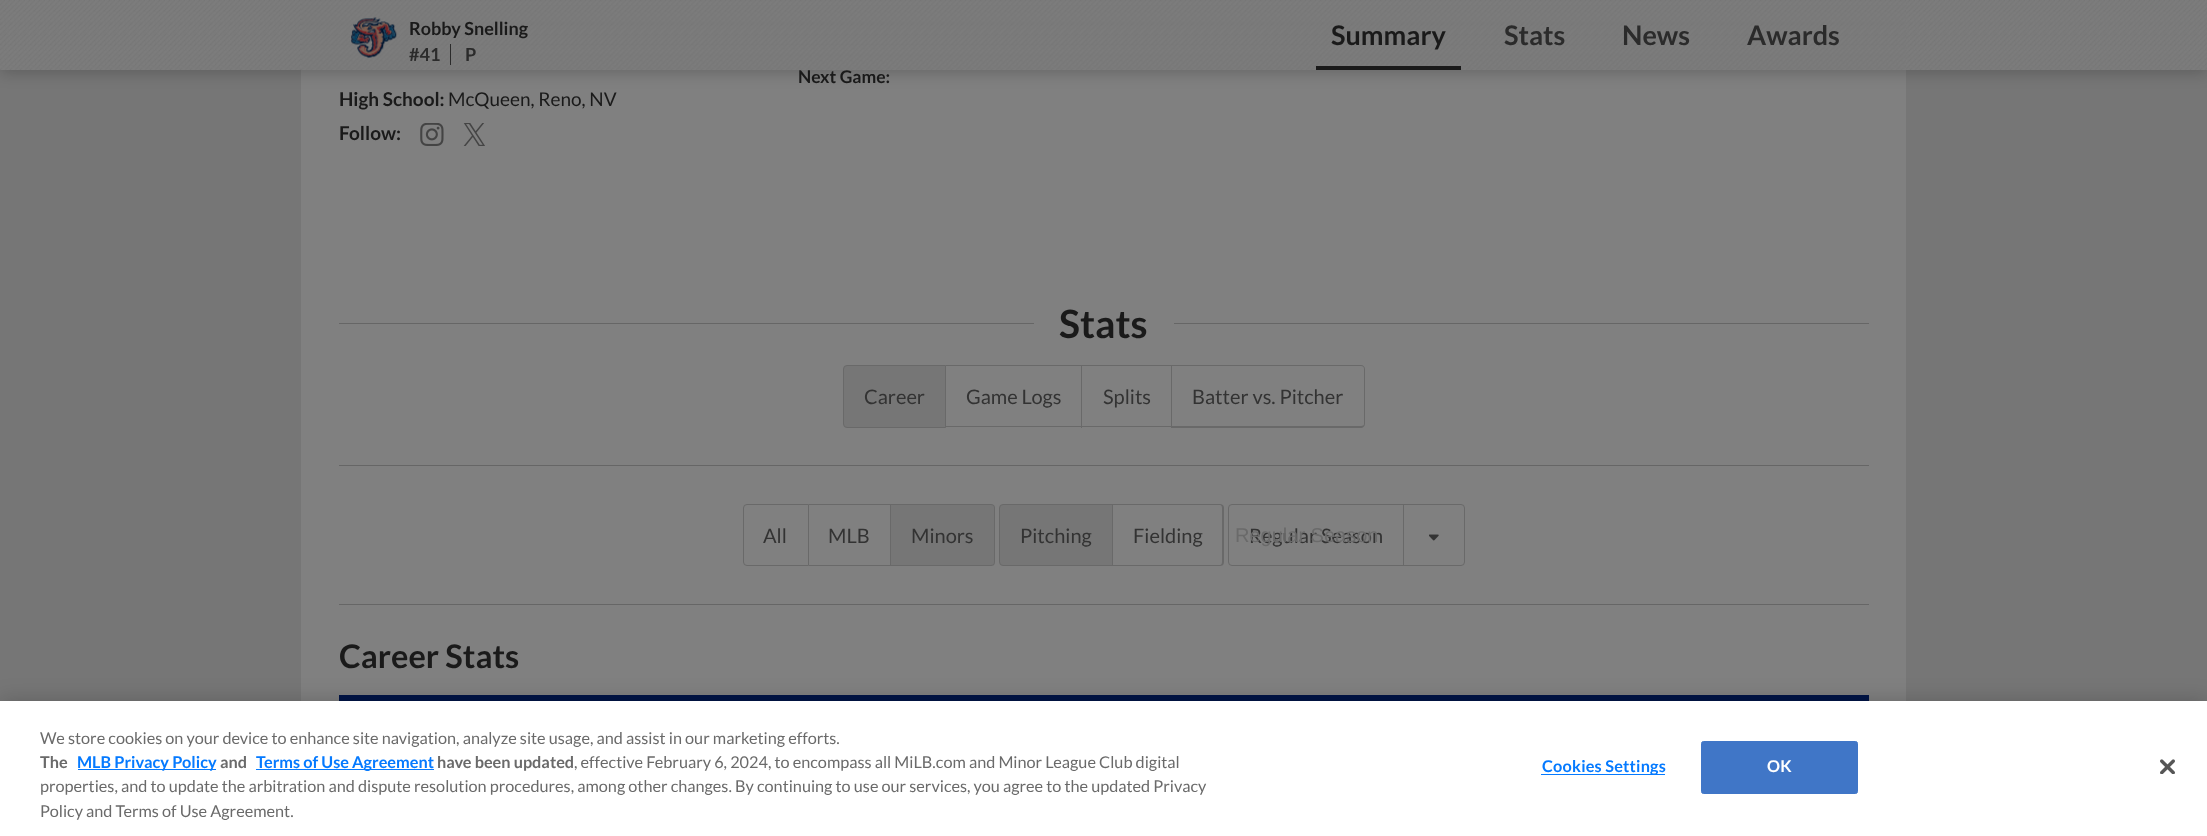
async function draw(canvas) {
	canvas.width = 2207;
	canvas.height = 836;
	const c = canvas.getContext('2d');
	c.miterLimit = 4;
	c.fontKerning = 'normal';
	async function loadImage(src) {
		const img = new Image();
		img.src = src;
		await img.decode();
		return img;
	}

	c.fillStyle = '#767676';
	c.fillRect(0, 0, 2207, 836);
	c.fillStyle = '#808080';
	c.fillRect(301, 70, 1605, 631);
	c.fillStyle = '#00000033';
	c.filter = 'blur(7.5px)';
	c.beginPath();
	c.rect(0, 3, 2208, 70);
	c.fill();
	c.filter = 'none';
	c.drawImage(await loadImage('img1.png'), 0, 0, 2207, 70);
	c.drawImage(await loadImage('img2.png'), 301, 0, 1605, 70);
	c.drawImage(await loadImage('img3.png'), 351, 17, 46, 41);
	c.font = 'bold 18px Lato';
	c.fillStyle = '#1a1a1a';
	c.fillText('Robby Snelling', 409, 35);
	c.fillStyle = '#2b2b2b';
	c.fillText('#41', 409, 61);
	c.fillRect(450, 44, 1, 21);
	c.fillText('P', 465, 61);
	c.fillStyle = '#1a1a1a';
	c.fillRect(1316, 66, 145, 4);
	c.font = 'bold 27px Lato';
	c.fillText('Summary', 1331, 45);
	c.fillStyle = '#2b2b2b';
	for (const [text, x, y] of [
		['Stats', 1504, 45],
		['News', 1622, 45],
		['Awards', 1747, 45],
	]) {
		c.fillText(text, x, y);
	}
	c.font = 'bold 17.5px Lato';
	c.fillStyle = '#1a1a1a';
	c.fillText('Next Game:', 798, 83);
	c.font = 'bold 19px Lato';
	c.fillText('High School:', 339, 106);
	c.font = '19px Lato';
	c.fillText('McQueen, Reno, NV', 448, 106);
	c.font = 'bold 19px Lato';
	c.fillText('Follow:', 339, 140);
	c.drawImage(await loadImage('img4.png'), 420, 123, 24, 23);
	c.drawImage(await loadImage('img5.png'), 463, 123, 22, 23);
	c.fillStyle = '#666';
	c.fillRect(339, 323, 695, 1);
	c.font = 'bold 39px Lato';
	c.fillStyle = '#1a1a1a';
	c.fillText('Stats', 1059, 338);
	c.fillStyle = '#666';
	c.fillRect(1174, 323, 695, 1);
	c.fillStyle = '#767676';
	c.beginPath();
	c.roundRect(843.5, 365.5, 102, 62, [3.5, 0, 0, 3.5]);
	c.fill();
	c.strokeStyle = '#696969';
	c.stroke();
	c.font = '20px Lato';
	c.fillStyle = '#333';
	c.fillText('Career', 864, 404);
	for (const [x, y, w, h, color] of [
		[946, 365, 227, 1, '#696969'],
		[1081, 365, 1, 63, '#696969'],
		[946, 426, 137, 1, '#696969'],
	]) {
		c.fillStyle = color;
		c.fillRect(x, y, w, h);
	}
	c.fillStyle = '#333';
	c.fillText('Game Logs', 966, 404);
	c.fillStyle = '#696969';
	c.fillRect(1171, 365, 1, 63);
	c.fillRect(1083, 426, 90, 1);
	c.fillStyle = '#333';
	c.fillText('Splits', 1103, 404);
	c.fillStyle = '#696969';
	c.beginPath();
	c.moveTo(1172, 365);
	c.lineTo(1361, 365);
	c.bezierCurveTo(1363, 365, 1365, 367, 1365, 369);
	c.lineTo(1365, 424);
	c.bezierCurveTo(1365, 426, 1363, 428, 1361, 428);
	c.lineTo(1172, 428);
	c.closePath();
	c.moveTo(1172, 366);
	c.lineTo(1361, 366);
	c.bezierCurveTo(1363, 366, 1364, 367, 1364, 369);
	c.lineTo(1364, 424);
	c.bezierCurveTo(1364, 425, 1363, 426, 1361, 426);
	c.lineTo(1172, 426);
	c.closePath();
	c.fill('evenodd');
	c.fillStyle = '#333';
	c.fillText('Batter vs. Pitcher', 1192, 404);
	c.fillStyle = '#666';
	c.fillRect(339, 465, 1530, 1);
	c.fillRect(339, 604, 1530, 1);
	c.beginPath();
	c.roundRect(743.5, 504.5, 65, 61, [3.5, 0, 0, 3.5]);
	c.stroke();
	c.fillStyle = '#333';
	c.fillText('All', 763, 543);
	for (const [x, y, w, h, color] of [
		[809, 504, 82, 1, '#696969'],
		[890, 504, 1, 62, '#696969'],
		[809, 565, 82, 1, '#696969'],
	]) {
		c.fillStyle = color;
		c.fillRect(x, y, w, h);
	}
	c.fillStyle = '#333';
	c.fillText('MLB', 828, 543);
	c.fillStyle = '#767676';
	c.beginPath();
	c.roundRect(891, 505, 103, 60, [0, 2.5, 2.5, 0]);
	c.fill();
	c.fillStyle = '#696969';
	c.beginPath();
	c.moveTo(891, 504);
	c.lineTo(991, 504);
	c.bezierCurveTo(993, 504, 995, 505, 995, 508);
	c.lineTo(995, 562);
	c.bezierCurveTo(995, 565, 993, 566, 991, 566);
	c.lineTo(891, 566);
	c.closePath();
	c.moveTo(891, 505);
	c.lineTo(991, 505);
	c.bezierCurveTo(993, 505, 994, 506, 994, 508);
	c.lineTo(994, 562);
	c.bezierCurveTo(994, 564, 993, 565, 991, 565);
	c.lineTo(891, 565);
	c.closePath();
	c.fill('evenodd');
	c.fillStyle = '#333';
	c.fillText('Minors', 911, 543);
	c.fillStyle = '#767676';
	c.beginPath();
	c.roundRect(999.5, 504.5, 113, 61, [3.5, 0, 0, 3.5]);
	c.fill();
	c.stroke();
	c.fillStyle = '#333';
	c.fillText('Pitching', 1020, 543);
	c.fillStyle = '#696969';
	c.beginPath();
	c.moveTo(1112, 504);
	c.lineTo(1220, 504);
	c.bezierCurveTo(1222, 504, 1224, 505, 1224, 508);
	c.lineTo(1224, 562);
	c.bezierCurveTo(1224, 565, 1222, 566, 1220, 566);
	c.lineTo(1112, 566);
	c.closePath();
	c.moveTo(1112, 505);
	c.lineTo(1220, 505);
	c.bezierCurveTo(1221, 505, 1222, 506, 1222, 508);
	c.lineTo(1222, 562);
	c.bezierCurveTo(1222, 564, 1221, 565, 1220, 565);
	c.lineTo(1112, 565);
	c.closePath();
	c.fill('evenodd');
	c.fillStyle = '#333';
	c.fillText('Fielding', 1133, 543);
	c.beginPath();
	c.roundRect(1228.5, 504.5, 236, 61, 3.5);
	c.stroke();
	c.fillText('Regular Season', 1249, 543);
	c.font = '20px Liberation Sans';
	c.fillStyle = '#6a6a6a';
	c.fillText('Regular Season', 1235, 542);
	c.fillStyle = '#696969';
	c.fillRect(1403, 505, 1, 60);
	c.drawImage(await loadImage('img6.png'), 1429, 534, 10, 7);
	c.font = 'bold 32.5px Lato';
	c.fillStyle = '#1a1a1a';
	c.fillText('Career Stats', 339, 668);
	c.fillStyle = '#001446';
	c.fillRect(339, 695, 1530, 6);
	c.fillStyle = '#00000033';
	c.filter = 'blur(11px)';
	c.beginPath();
	c.rect(0, 701, 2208, 135);
	c.fill();
	c.filter = 'none';
	c.fillStyle = '#fff';
	c.fillRect(0, 701, 2207, 135);
	c.font = '16.25px Lato';
	c.fillStyle = '#6a6a6a';
	c.fillText('We store cookies on your device to enhance site navigation, analyze site usage, and assist in our marketing efforts.', 40, 744);
	c.font = 'bold 16.25px Lato';
	c.fillText('The', 40, 768);
	c.fillStyle = '#057aff';
	c.fillRect(78, 769, 138, 1);
	c.fillText('MLB Privacy Policy', 77, 768);
	c.fillStyle = '#6a6a6a';
	c.fillText('and', 220, 768);
	c.fillStyle = '#057aff';
	c.fillRect(256, 769, 178, 1);
	c.fillText('Terms of Use Agreement', 256, 768);
	c.fillStyle = '#6a6a6a';
	c.fillText('have been updated', 437, 768);
	c.font = '16.25px Lato';
	for (const [text, x, y] of [
		[', effective February 6, 2024, to encompass all MiLB.com and Minor League Club digital', 574, 768],
		['properties, and to update the arbitration and dispute resolution procedures, among other changes. By continuing to use our services, you agree to the updated Privacy', 40, 792],
		['Policy and Terms of Use Agreement.', 40, 817],
	]) {
		c.fillText(text, x, y);
	}
	c.fillStyle = '#057aff';
	c.fillRect(1541, 774, 124, 1);
	c.letterSpacing = '0.2px';
	c.font = 'bold 16.25px Lato';
	c.fillText('Cookies Settings', 1542, 772);
	c.fillStyle = '#4076c7';
	c.beginPath();
	c.roundRect(1701.5, 741.5, 156, 52, 2);
	c.fill();
	c.strokeStyle = '#4076c7';
	c.stroke();
	c.fillStyle = '#fff';
	c.fillText('OK', 1767, 772);
	c.drawImage(await loadImage('img7.png'), 2160, 759, 15, 15);
}

draw(document.querySelector('canvas'));
